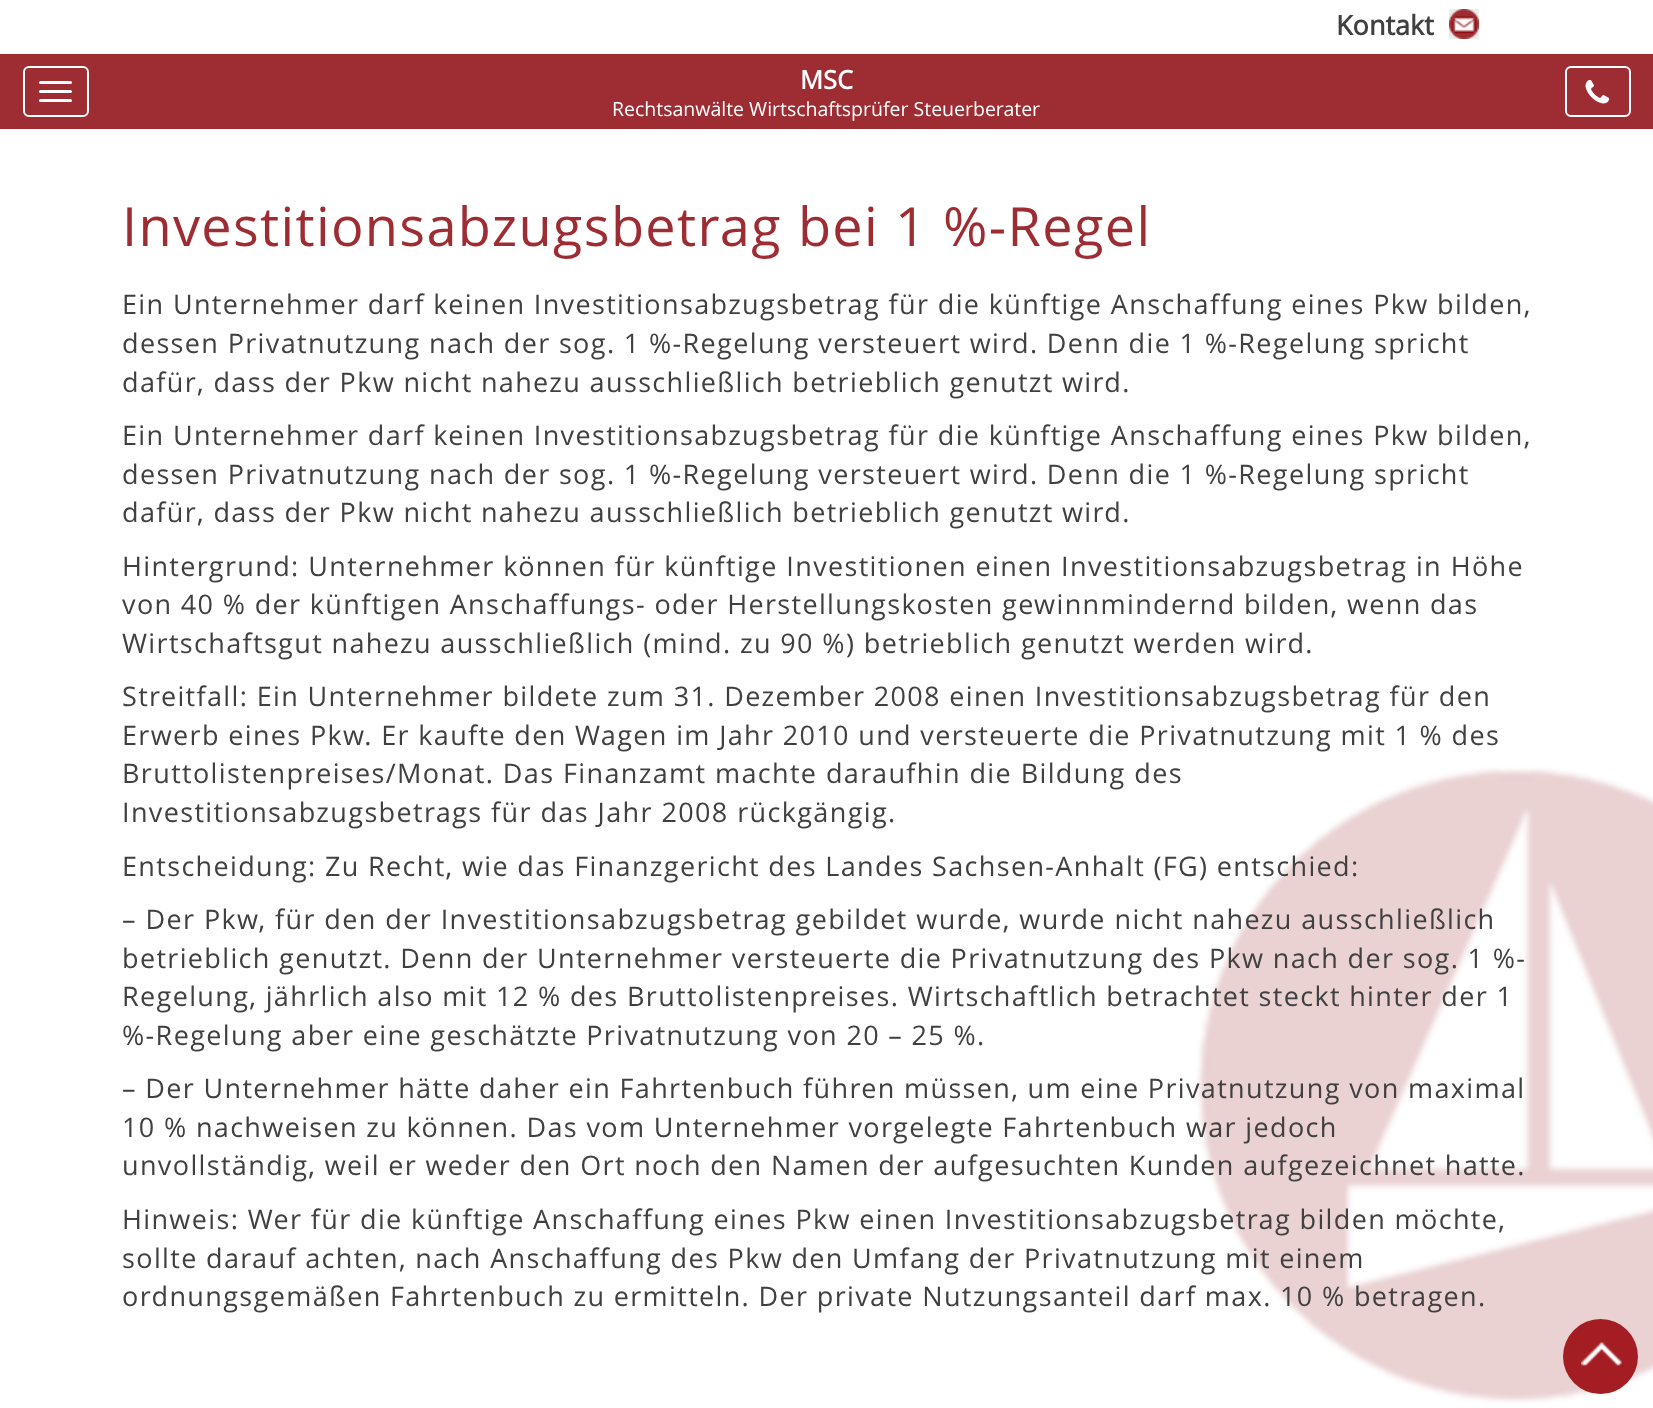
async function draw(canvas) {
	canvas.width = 1653;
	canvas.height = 1408;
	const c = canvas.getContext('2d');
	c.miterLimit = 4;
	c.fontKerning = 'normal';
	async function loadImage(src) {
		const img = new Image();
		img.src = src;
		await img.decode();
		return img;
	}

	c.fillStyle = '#fff';
	c.fillRect(0, 0, 1653, 1408);
	c.font = 'bold 27px Open Sans';
	c.fillStyle = '#404040';
	c.fillText('Kontakt', 1336, 35);
	c.drawImage(await loadImage('img1.png'), 1449, 9, 30, 30);
	c.fillStyle = '#9e2d33';
	c.fillRect(0, 54, 1653, 75);
	c.beginPath();
	c.roundRect(24, 67, 64, 49, 5);
	c.strokeStyle = '#fff';
	c.lineWidth = 2;
	c.stroke();
	c.fillStyle = '#fff';
	c.beginPath();
	c.roundRect(39, 81, 33, 3, 1.5);
	c.fill();
	c.beginPath();
	c.roundRect(39, 90, 33, 3, 1.5);
	c.fill();
	c.beginPath();
	c.roundRect(39, 99, 33, 3, 1.5);
	c.fill();
	c.font = 'bold 25.5px Open Sans';
	c.fillText('MSC', 800, 89);
	c.font = '19.5px Open Sans';
	c.fillText('Rechtsanwälte Wirtschaftsprüfer Steuerberater', 612, 116);
	c.beginPath();
	c.roundRect(1566, 67, 64, 49, 5);
	c.stroke();
	c.drawImage(await loadImage('img2.png'), 1585, 79, 25, 25);
	c.drawImage(await loadImage('img3.png'), 1196, 767, 457, 636);
	c.letterSpacing = '1.35px';
	c.wordSpacing = '0.5px';
	c.font = '54px Open Sans';
	c.fillStyle = '#9e2d33';
	c.fillText('Investitionsabzugsbetrag bei 1 %-Regel', 122, 246);
	c.wordSpacing = '0.1px';
	c.font = '27px Open Sans';
	c.fillStyle = '#404040';
	c.fillText('Ein Unternehmer darf keinen Investitionsabzugsbetrag für die künftige Anschaffung eines Pkw bilden,', 122, 314);
	c.wordSpacing = '0px';
	c.fillText('dessen Privatnutzung nach der sog. 1 %-Regelung versteuert wird. Denn die 1 %-Regelung spricht', 122, 353);
	c.fillText('dafür, dass der Pkw nicht nahezu ausschließlich betrieblich genutzt wird.', 122, 392);
	c.wordSpacing = '0.1px';
	c.fillText('Ein Unternehmer darf keinen Investitionsabzugsbetrag für die künftige Anschaffung eines Pkw bilden,', 122, 445);
	c.wordSpacing = '0px';
	c.fillText('dessen Privatnutzung nach der sog. 1 %-Regelung versteuert wird. Denn die 1 %-Regelung spricht', 122, 484);
	c.fillText('dafür, dass der Pkw nicht nahezu ausschließlich betrieblich genutzt wird.', 122, 522);
	c.wordSpacing = '0.25px';
	c.fillText('Hintergrund: Unternehmer können für künftige Investitionen einen Investitionsabzugsbetrag in Höhe', 122, 576);
	c.wordSpacing = '0px';
	c.fillText('von 40 % der künftigen Anschaffungs- oder Herstellungskosten gewinnmindernd bilden, wenn das', 122, 614);
	c.wordSpacing = '0.1px';
	c.fillText('Wirtschaftsgut nahezu ausschließlich (mind. zu 90 %) betrieblich genutzt werden wird.', 122, 653);
	c.fillText('Streitfall: Ein Unternehmer bildete zum 31. Dezember 2008 einen Investitionsabzugsbetrag für den', 122, 706);
	c.wordSpacing = '0px';
	c.fillText('Erwerb eines Pkw. Er kaufte den Wagen im Jahr 2010 und versteuerte die Privatnutzung mit 1 % des', 122, 745);
	c.wordSpacing = '0.25px';
	c.fillText('Bruttolistenpreises/Monat. Das Finanzamt machte daraufhin die Bildung des', 122, 783);
	c.fillText('Investitionsabzugsbetrags für das Jahr 2008 rückgängig.', 122, 822);
	c.wordSpacing = '0px';
	c.fillText('Entscheidung: Zu Recht, wie das Finanzgericht des Landes Sachsen-Anhalt (FG) entschied:', 122, 876);
	c.wordSpacing = '0.25px';
	c.fillText('– Der Pkw, für den der Investitionsabzugsbetrag gebildet wurde, wurde nicht nahezu ausschließlich', 122, 929);
	c.wordSpacing = '0px';
	for (const [text, x, y] of [
		['betrieblich genutzt. Denn der Unternehmer versteuerte die Privatnutzung des Pkw nach der sog. 1 %-', 122, 968],
		['Regelung, jährlich also mit 12 % des Bruttolistenpreises. Wirtschaftlich betrachtet steckt hinter der 1', 122, 1006],
		['%-Regelung aber eine geschätzte Privatnutzung von 20 – 25 %.', 122, 1045],
		['– Der Unternehmer hätte daher ein Fahrtenbuch führen müssen, um eine Privatnutzung von maximal', 122, 1098],
		['10 % nachweisen zu können. Das vom Unternehmer vorgelegte Fahrtenbuch war jedoch', 122, 1137],
		['unvollständig, weil er weder den Ort noch den Namen der aufgesuchten Kunden aufgezeichnet hatte.', 122, 1175],
	]) {
		c.fillText(text, x, y);
	}
	c.wordSpacing = '0.1px';
	c.fillText('Hinweis: Wer für die künftige Anschaffung eines Pkw einen Investitionsabzugsbetrag bilden möchte,', 122, 1229);
	c.wordSpacing = '0px';
	c.fillText('sollte darauf achten, nach Anschaffung des Pkw den Umfang der Privatnutzung mit einem', 122, 1268);
	c.fillText('ordnungsgemäßen Fahrtenbuch zu ermitteln. Der private Nutzungsanteil darf max. 10 % betragen.', 122, 1306);
	c.fillStyle = '#a41d23';
	c.beginPath();
	c.arc(1600.5, 1356.5, 37.5, 0, 2 * Math.PI);
	c.fill();
	c.drawImage(await loadImage('img4.png'), 1581, 1342, 41, 24);
}

draw(document.querySelector('canvas'));
